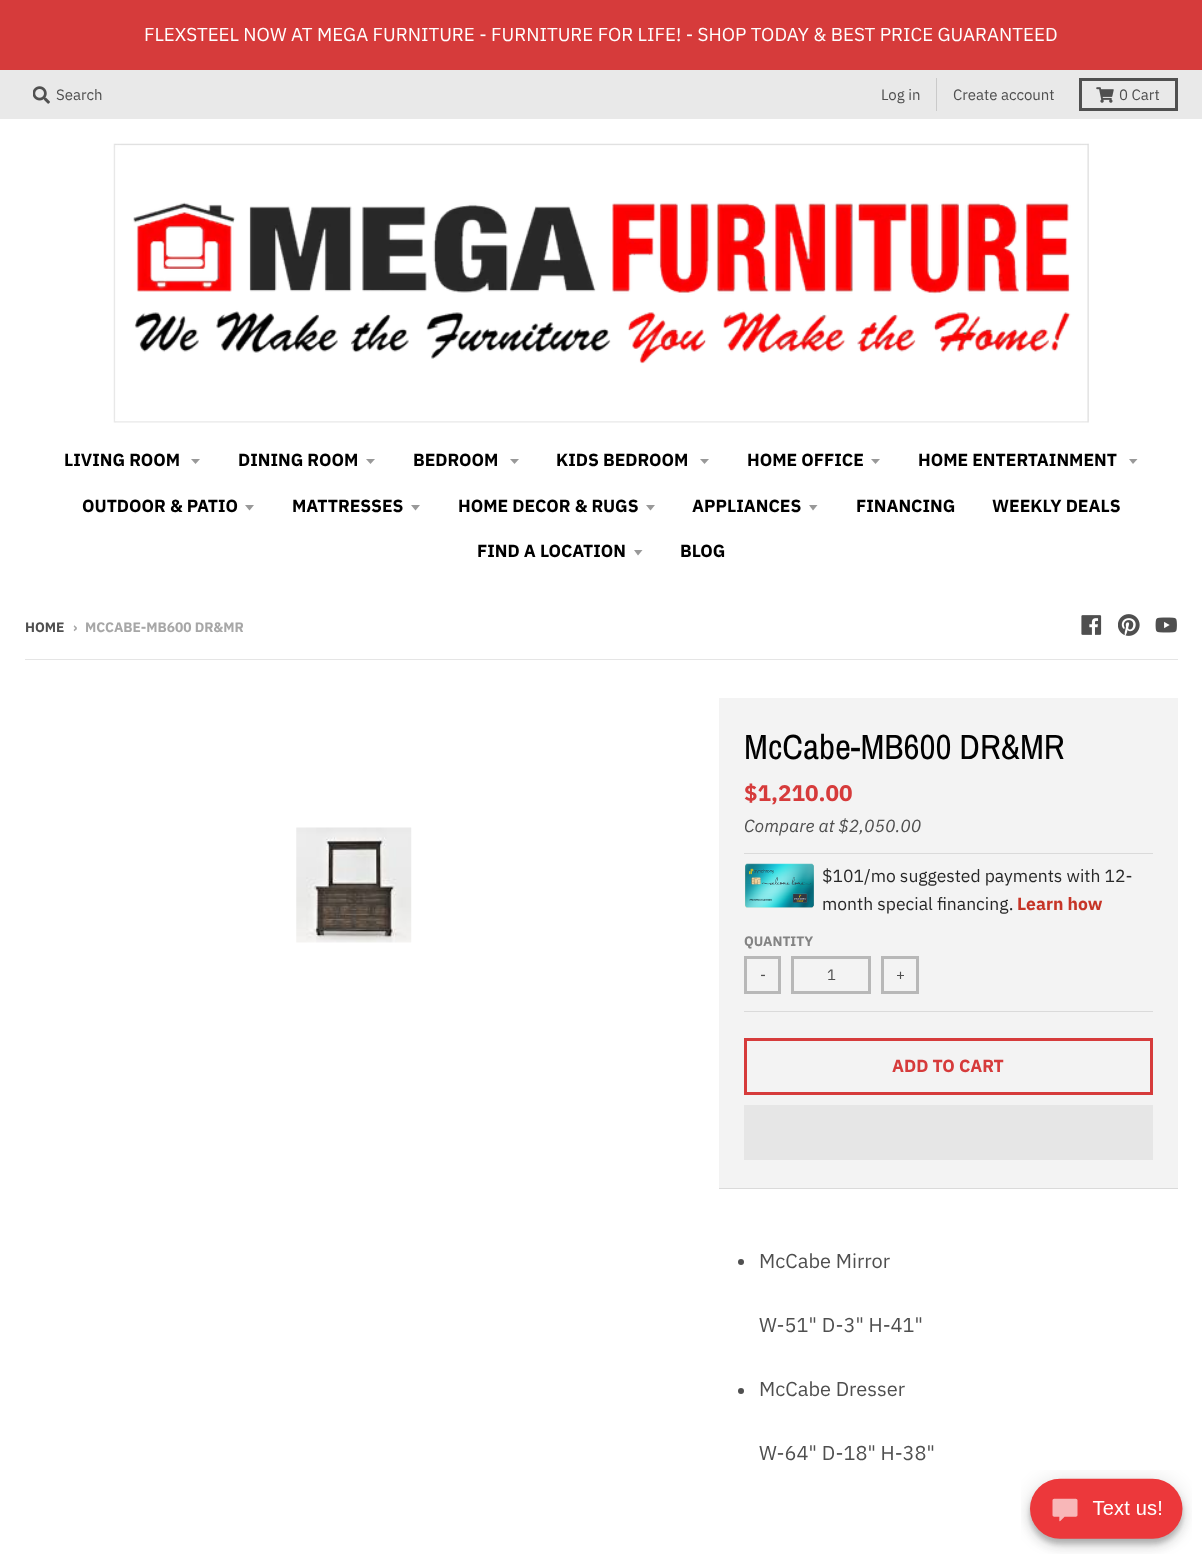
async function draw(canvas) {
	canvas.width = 1202;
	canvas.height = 1568;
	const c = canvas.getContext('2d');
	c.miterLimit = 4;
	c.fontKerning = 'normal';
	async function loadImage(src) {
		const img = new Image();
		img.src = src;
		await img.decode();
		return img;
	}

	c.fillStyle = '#fff';
	c.fillRect(0, 0, 1202, 1568);
	c.fillStyle = '#d63b3b';
	c.fillRect(0, 0, 1202, 70);
	c.font = '18.75px IBM Plex Sans';
	c.fillStyle = '#fff';
	c.fillText('FLEXSTEEL NOW AT MEGA FURNITURE - FURNITURE FOR LIFE! - SHOP TODAY & BEST PRICE GUARANTEED', 144, 41);
	c.fillStyle = '#e9e9e9';
	c.fillRect(0, 70, 1202, 49);
	c.drawImage(await loadImage('img1.png'), 33, 86, 17, 18);
	c.font = '15px IBM Plex Sans';
	c.fillStyle = '#4f4f4f';
	c.fillText('Search', 56, 100);
	c.fillStyle = '#cacaca';
	c.fillRect(936, 78, 1, 33);
	c.fillStyle = '#4f4f4f';
	c.fillText('Log in', 881, 100);
	c.fillText('Create account', 953, 100);
	c.strokeStyle = '#505050';
	c.lineWidth = 3;
	c.strokeRect(1080.5, 79.5, 96, 30);
	c.drawImage(await loadImage('img2.png'), 1096, 87, 18, 16);
	c.fillText('0 Cart', 1119, 100);
	c.drawImage(await loadImage('img3.png'), 113, 143, 976, 280);
	c.font = 'bold 17.5px IBM Plex Sans';
	c.fillStyle = '#000';
	c.fillText('LIVING ROOM', 64, 466);
	c.fillStyle = '#999';
	c.beginPath();
	c.moveTo(191, 459);
	c.lineTo(195.5, 464);
	c.lineTo(200, 459);
	c.closePath();
	c.fill();
	c.fillStyle = '#000';
	c.fillText('DINING ROOM', 238, 466);
	c.fillStyle = '#999';
	c.beginPath();
	c.moveTo(366, 459);
	c.lineTo(370.5, 464);
	c.lineTo(375, 459);
	c.closePath();
	c.fill();
	c.fillStyle = '#000';
	c.fillText('BEDROOM', 413, 466);
	c.fillStyle = '#999';
	c.beginPath();
	c.moveTo(510, 459);
	c.lineTo(514.5, 464);
	c.lineTo(519, 459);
	c.closePath();
	c.fill();
	c.fillStyle = '#000';
	c.fillText('KIDS BEDROOM', 556, 466);
	c.fillStyle = '#999';
	c.beginPath();
	c.moveTo(700, 459);
	c.lineTo(704.5, 464);
	c.lineTo(709, 459);
	c.closePath();
	c.fill();
	c.fillStyle = '#000';
	c.fillText('HOME OFFICE', 747, 466);
	c.fillStyle = '#999';
	c.beginPath();
	c.moveTo(871, 459);
	c.lineTo(875.5, 464);
	c.lineTo(880, 459);
	c.closePath();
	c.fill();
	c.fillStyle = '#000';
	c.fillText('HOME ENTERTAINMENT', 918, 466);
	c.fillStyle = '#999';
	c.beginPath();
	c.moveTo(1129, 459);
	c.lineTo(1133, 464);
	c.lineTo(1137.5, 459);
	c.closePath();
	c.fill();
	c.fillStyle = '#000';
	c.fillText('OUTDOOR & PATIO', 82, 512);
	c.fillStyle = '#999';
	c.beginPath();
	c.moveTo(245, 505);
	c.lineTo(249.5, 510.5);
	c.lineTo(254, 505);
	c.closePath();
	c.fill();
	c.fillStyle = '#000';
	c.fillText('MATTRESSES', 292, 512);
	c.fillStyle = '#999';
	c.beginPath();
	c.moveTo(411, 505);
	c.lineTo(415.5, 510.5);
	c.lineTo(420, 505);
	c.closePath();
	c.fill();
	c.fillStyle = '#000';
	c.fillText('HOME DECOR & RUGS', 458, 512);
	c.fillStyle = '#999';
	c.beginPath();
	c.moveTo(646, 505);
	c.lineTo(650.5, 510.5);
	c.lineTo(655, 505);
	c.closePath();
	c.fill();
	c.fillStyle = '#000';
	c.fillText('APPLIANCES', 692, 512);
	c.fillStyle = '#999';
	c.beginPath();
	c.moveTo(809, 505);
	c.lineTo(813, 510.5);
	c.lineTo(817.5, 505);
	c.closePath();
	c.fill();
	c.fillStyle = '#000';
	for (const [text, x, y] of [
		['FINANCING', 856, 512],
		['WEEKLY DEALS', 992, 512],
		['FIND A LOCATION', 477, 557],
	]) {
		c.fillText(text, x, y);
	}
	c.fillStyle = '#999';
	c.beginPath();
	c.moveTo(634, 550);
	c.lineTo(638, 555.5);
	c.lineTo(642.5, 550);
	c.closePath();
	c.fill();
	c.fillStyle = '#000';
	c.fillText('BLOG', 680, 557);
	c.font = 'bold 13.75px IBM Plex Sans';
	c.fillStyle = '#4f4f4f';
	c.fillText('HOME', 25, 632);
	c.fillStyle = '#a7a7a7';
	c.fillText('›', 73, 632);
	c.fillText('MCCABE-MB600 DR&MR', 85, 632);
	c.drawImage(await loadImage('img4.png'), 1081, 615, 21, 20);
	c.drawImage(await loadImage('img5.png'), 1118, 614, 22, 22);
	c.drawImage(await loadImage('img6.png'), 1155, 617, 22, 16);
	c.fillStyle = '#e5e5e5';
	c.fillRect(25, 659, 1153, 1);
	c.drawImage(await loadImage('img7.png'), 296, 827, 116, 116);
	c.fillStyle = '#f3f3f3';
	c.fillRect(719, 698, 459, 490);
	c.fillStyle = '#dadada';
	c.fillRect(719, 1188, 459, 1);
	c.font = '35px Archivo Narrow';
	c.fillStyle = '#000';
	c.fillText('McCabe-MB600 DR&MR', 744, 759);
	c.fillStyle = '#dadada';
	c.fillRect(744, 853, 409, 1);
	c.font = 'bold 22.5px IBM Plex Sans';
	c.fillStyle = '#d63b3b';
	c.fillText('$1,210.00', 744, 801);
	c.font = 'italic 17.5px IBM Plex Sans';
	c.fillStyle = '#4f4f4f';
	c.fillText('Compare at $2,050.00', 744, 832);
	c.drawImage(await loadImage('img8.png'), 745, 863, 69, 45);
	c.font = '17.5px IBM Plex Sans';
	c.fillStyle = '#282828';
	c.fillText('$101/mo suggested payments with 12-', 822, 882);
	c.fillText('month special financing.', 822, 910);
	c.font = 'bold 17.5px IBM Plex Sans';
	c.fillStyle = '#c63527';
	c.fillText('Learn how', 1017, 910);
	c.fillStyle = '#dadada';
	c.fillRect(744, 1011, 409, 1);
	c.font = 'bold 13.75px IBM Plex Sans';
	c.fillStyle = '#838383';
	c.fillText('QUANTITY', 744, 946);
	c.strokeStyle = '#b8b8b8';
	c.strokeRect(745.5, 957.5, 34, 35);
	c.font = '15px IBM Plex Sans';
	c.fillStyle = '#4f4f4f';
	c.fillText('-', 760, 980);
	c.strokeRect(792.5, 957.5, 77, 35);
	c.fillText('1', 827, 980);
	c.strokeRect(882.5, 957.5, 35, 35);
	c.fillText('+', 896, 980);
	c.strokeStyle = '#d63b3b';
	c.strokeRect(745.5, 1039.5, 406, 54);
	c.font = 'bold 17.5px IBM Plex Sans';
	c.fillStyle = '#d63b3b';
	c.fillText('ADD TO CART', 892, 1072);
	c.fillStyle = '#e6e6e6';
	c.fillRect(744, 1105, 409, 55);
	c.fillStyle = '#4f4f4f';
	c.beginPath();
	c.arc(741, 1262, 3, 0, 2 * Math.PI);
	c.fill();
	c.font = '20px IBM Plex Sans';
	c.fillText('McCabe Mirror', 759, 1268);
	c.fillText('W-51" D-3" H-41"', 759, 1332);
	c.beginPath();
	c.arc(741, 1391, 3, 0, 2 * Math.PI);
	c.fill();
	c.fillText('McCabe Dresser', 759, 1396);
	c.fillText('W-64" D-18" H-38"', 759, 1460);
	c.drawImage(await loadImage('img9.png'), 1021, 1470, 171, 84);
}

draw(document.querySelector('canvas'));
